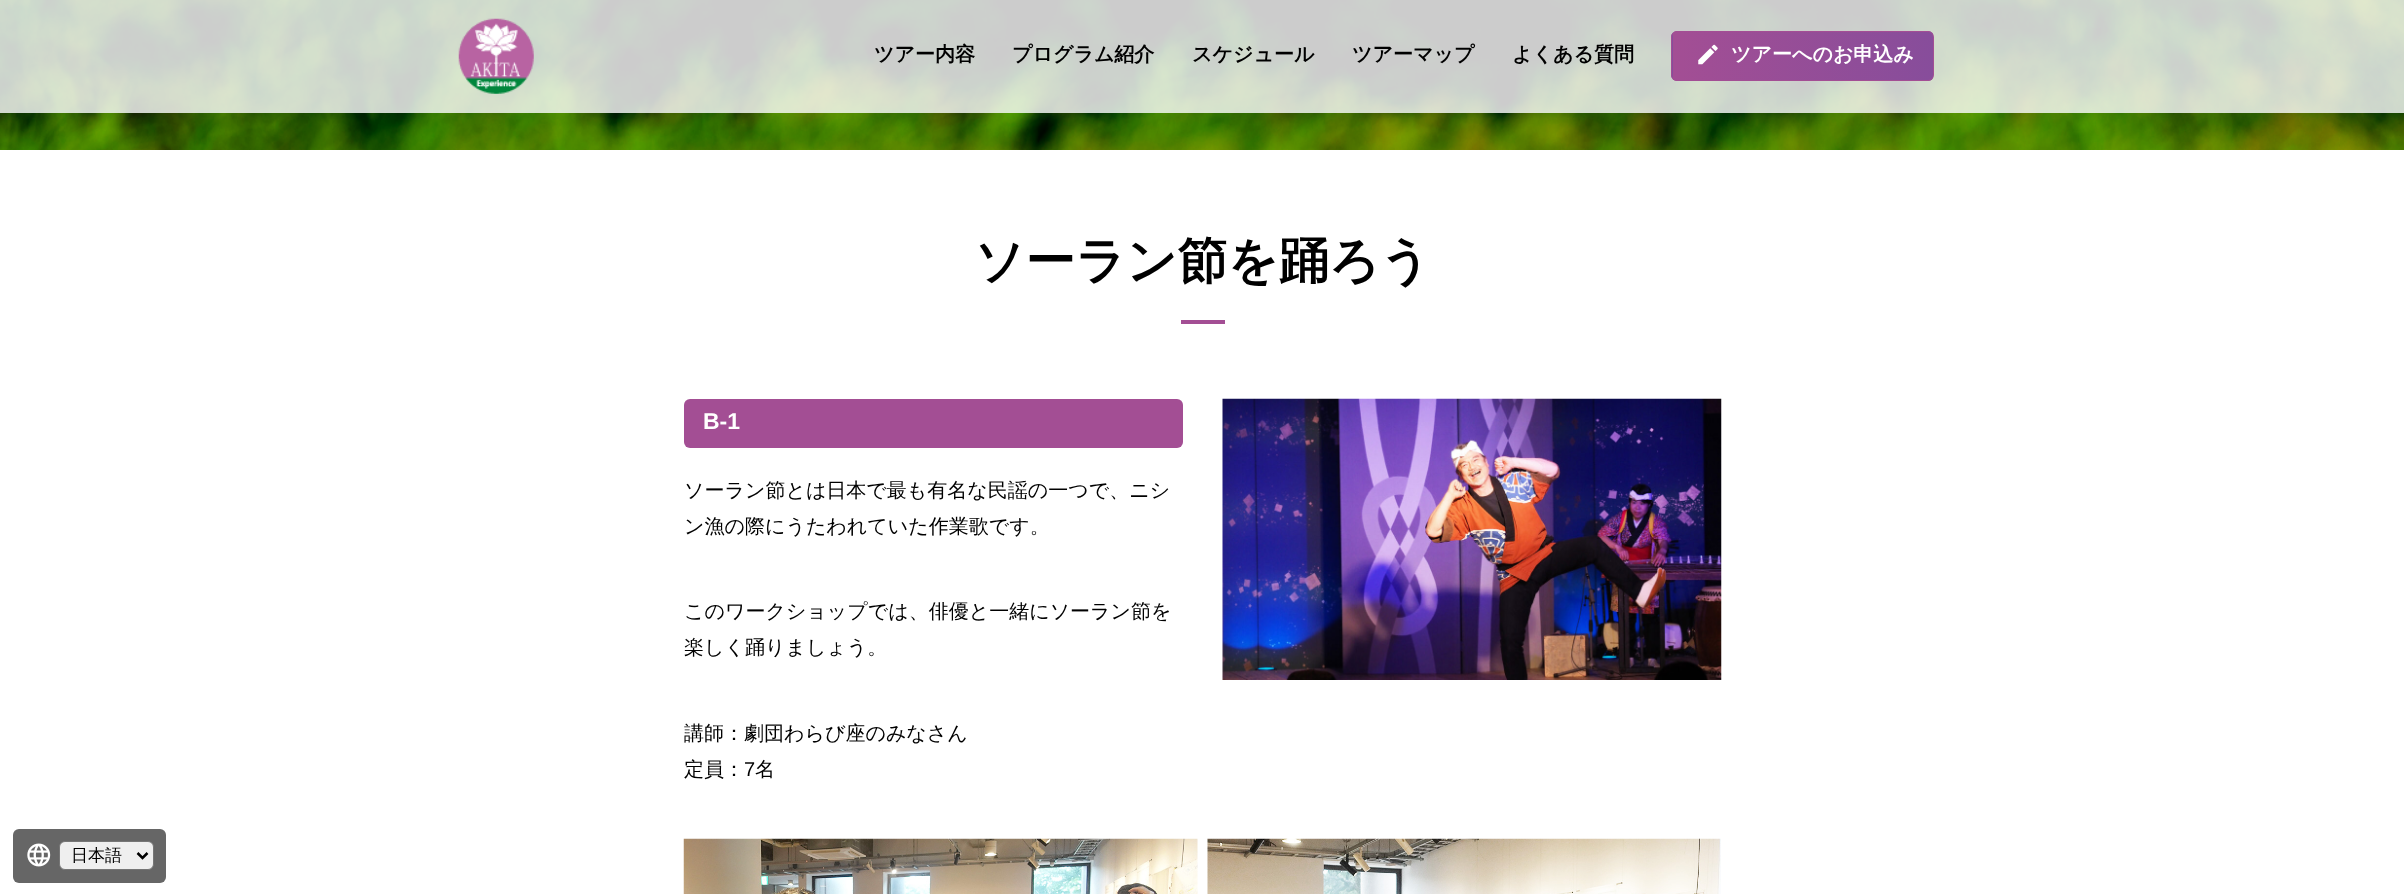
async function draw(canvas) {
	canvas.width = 2404;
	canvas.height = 894;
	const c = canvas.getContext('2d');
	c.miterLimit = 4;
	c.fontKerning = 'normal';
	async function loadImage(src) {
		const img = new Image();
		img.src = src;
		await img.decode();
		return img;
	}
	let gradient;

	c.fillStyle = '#fff';
	c.fillRect(0, 0, 2404, 894);
	c.drawImage(await loadImage('img3.png'), 0, 0, 2404, 150);
	c.fillStyle = '#ffffffcc';
	c.fillRect(0, 0, 2404, 113);
	c.drawImage(await loadImage('img1.png'), 458, 18, 76, 76);
	c.font = 'bold 20px WenQuanYi Zen Hei';
	c.fillStyle = '#000';
	for (const [text, x, y] of [
		['ツアー内容', 874, 61],
		['プログラム紹介', 1012, 61],
		['スケジュール', 1192, 61],
		['ツアーマップ', 1352, 61],
		['よくある質問', 1512, 61],
	]) {
		c.fillText(text, x, y);
	}
	c.save();
	c.beginPath();
	c.roundRect(1671, 31, 263, 50, 6);
	c.clip();
	gradient = c.createLinearGradient(1673, 56, 1413, 56);
	gradient.addColorStop(0, '#874d9b');
	gradient.addColorStop(1, '#a34e94');
	c.fillStyle = gradient;
	c.fillRect(1671, 31, 2, 50);
	gradient = c.createLinearGradient(1933, 56, 1673, 56);
	gradient.addColorStop(0, '#874d9b');
	gradient.addColorStop(1, '#a34e94');
	c.fillStyle = gradient;
	c.fillRect(1673, 31, 260, 50);
	c.restore();
	c.beginPath();
	c.roundRect(1671.5, 31.5, 262, 49, 5.5);
	c.strokeStyle = '#a34e94';
	c.stroke();
	c.drawImage(await loadImage('img2.png'), 1698, 44, 20, 21);
	c.fillStyle = '#fff';
	c.fillText('ツアーへのお申込み', 1731, 61);
	c.font = 'bold 50px WenQuanYi Zen Hei';
	c.fillStyle = '#000';
	c.fillText('ソーラン節を踊ろう', 974, 278);
	c.fillStyle = '#a34e94';
	c.fillRect(1181, 320, 44, 4);
	c.beginPath();
	c.roundRect(684, 399, 499, 49, 6);
	c.fill();
	c.font = 'bold 23px Liberation Sans';
	c.fillStyle = '#fff';
	c.fillText('B-1', 703, 429);
	c.font = '500 20px WenQuanYi Zen Hei';
	c.fillStyle = '#000';
	for (const [text, x, y] of [
		['ソーラン節とは日本で最も有名な民謡の一つで、ニシ', 684, 497],
		['ン漁の際にうたわれていた作業歌です。', 684, 533],
		['このワークショップでは、俳優と一緒にソーラン節を', 684, 618],
		['楽しく踊りましょう。', 684, 654],
		['講師：劇団わらび座のみなさん', 684, 740],
		['定員：', 684, 776],
	]) {
		c.fillText(text, x, y);
	}
	c.font = '20px Liberation Sans';
	c.fillText('7', 744, 776);
	c.font = '500 20px WenQuanYi Zen Hei';
	c.fillText('名', 755, 776);
	c.drawImage(await loadImage('img4.png'), 1222, 398, 500, 282);
	c.drawImage(await loadImage('img5.png'), 683, 838, 515, 56);
	c.drawImage(await loadImage('img6.png'), 1207, 838, 514, 56);
	c.fillStyle = '#666';
	c.beginPath();
	c.roundRect(13, 829, 153, 54, 6);
	c.fill();
	c.drawImage(await loadImage('img7.png'), 27, 843, 24, 24);
	c.fillStyle = '#efefef';
	c.beginPath();
	c.roundRect(59.5, 841.5, 94, 28, 5.5);
	c.fill();
	c.strokeStyle = '#767676';
	c.stroke();
	c.beginPath();
	c.moveTo(137.5, 853);
	c.lineTo(142.5, 858);
	c.lineTo(147.5, 853);
	c.strokeStyle = '#000';
	c.lineWidth = 2.5;
	c.stroke();
	c.font = '500 17px WenQuanYi Zen Hei';
	c.fillStyle = '#000';
	c.fillText('日本語', 71, 861);
}

draw(document.querySelector('canvas'));
